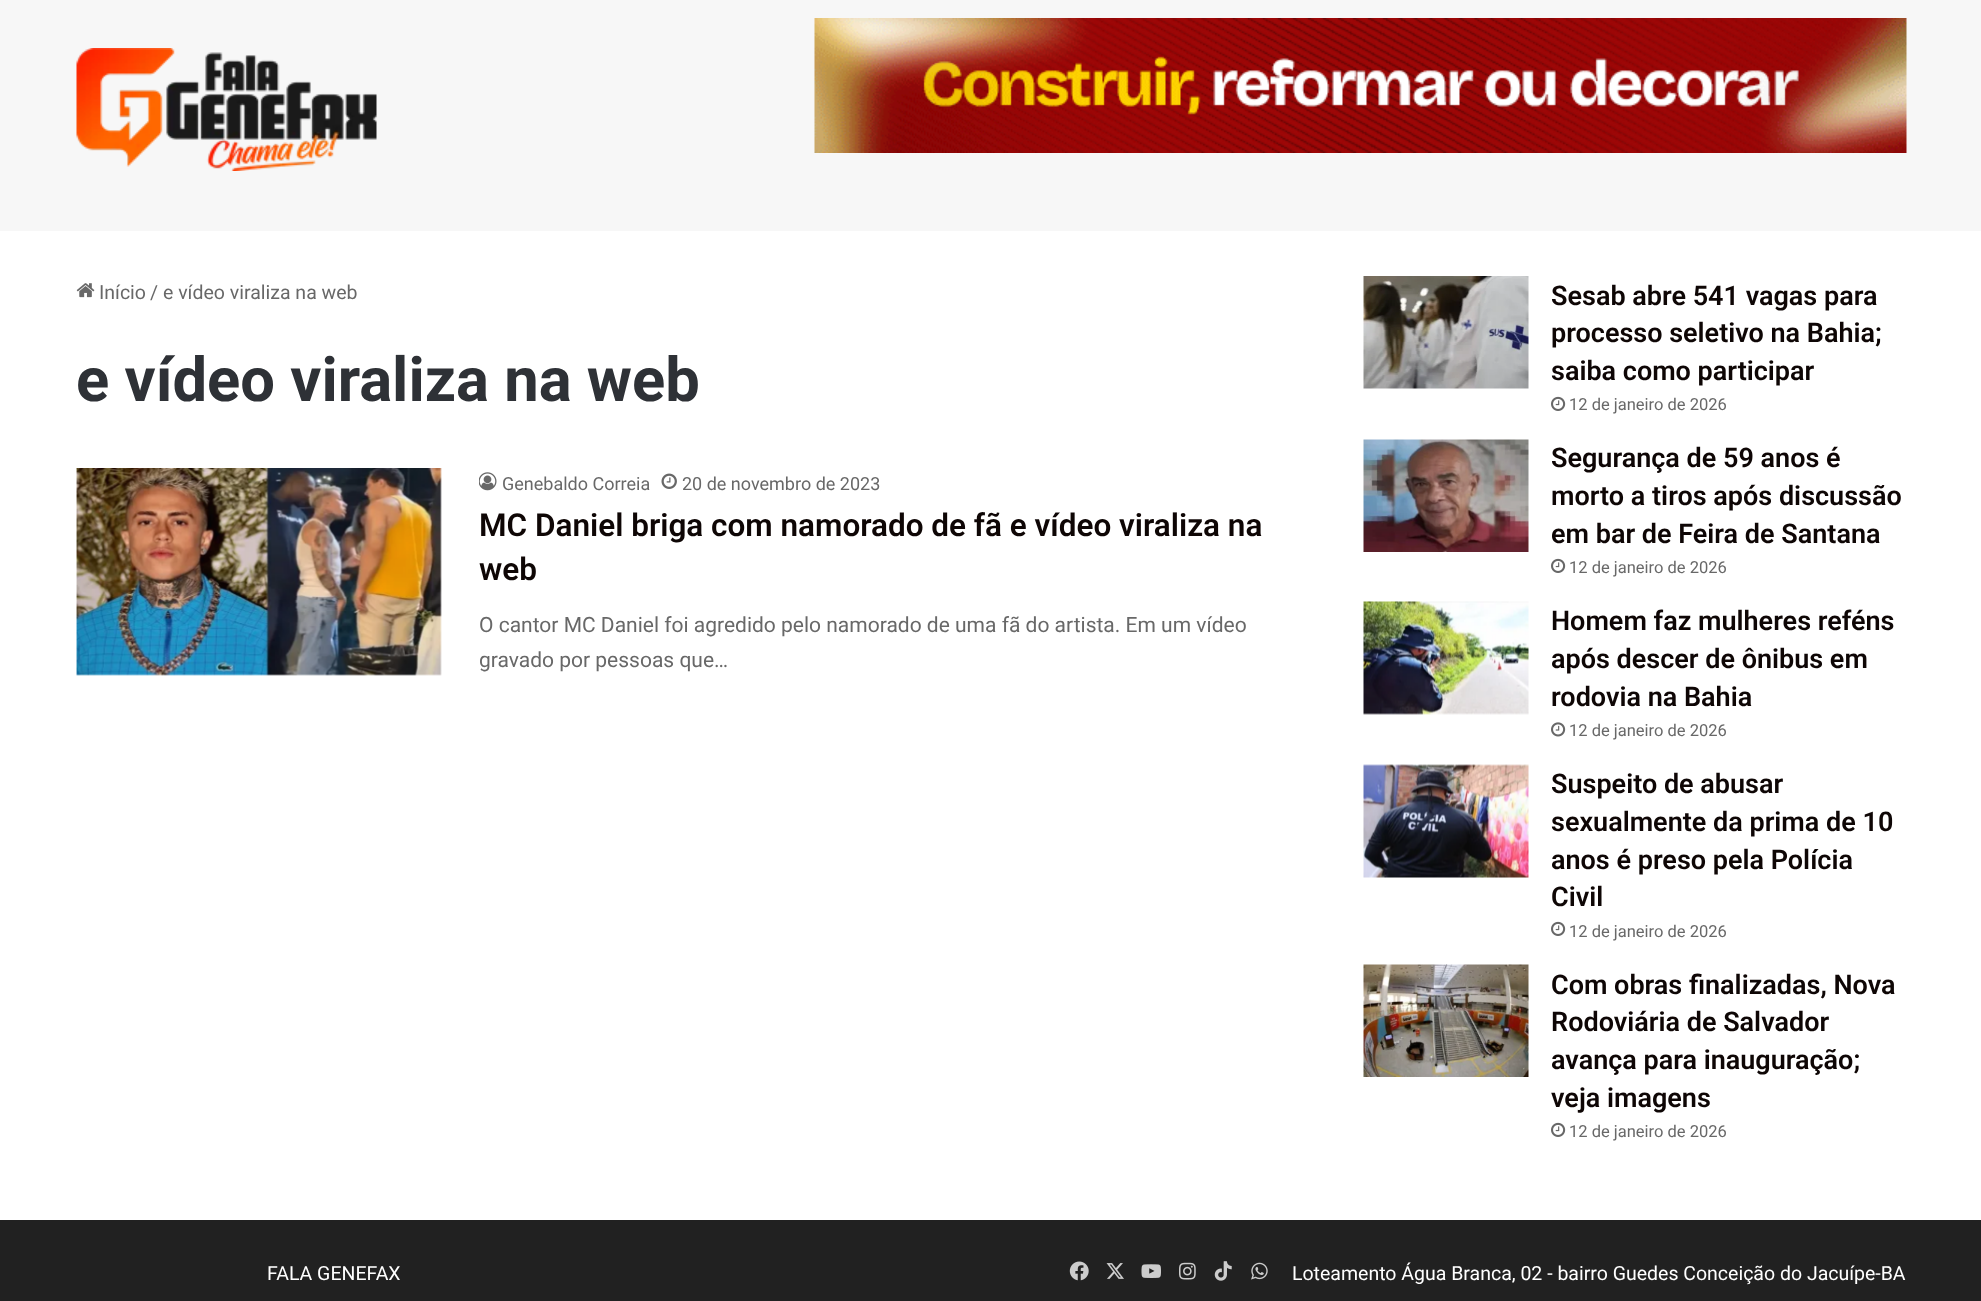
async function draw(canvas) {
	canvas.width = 1981;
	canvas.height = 1301;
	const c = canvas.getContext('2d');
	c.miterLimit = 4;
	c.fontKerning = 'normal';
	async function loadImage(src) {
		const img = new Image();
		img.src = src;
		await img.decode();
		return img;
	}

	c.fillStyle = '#fff';
	c.fillRect(0, 0, 1981, 1301);
	c.fillStyle = '#f7f7f7';
	c.fillRect(0, 0, 1981, 231);
	c.drawImage(await loadImage('img1.png'), 76, 48, 301, 123);
	c.drawImage(await loadImage('img2.png'), 814, 18, 1093, 135);
	c.drawImage(await loadImage('img3.png'), 76, 283, 19, 15);
	c.font = '19.5px Roboto';
	c.fillStyle = '#686868';
	for (const [text, x, y] of [
		['Início', 99, 299],
		['/', 150, 299],
		['e vídeo viraliza na web', 163, 299],
	]) {
		c.fillText(text, x, y);
	}
	c.font = 'bold 61.5px Roboto';
	c.fillStyle = '#2e3136';
	c.fillText('e vídeo viraliza na web', 76, 401);
	c.drawImage(await loadImage('img4.png'), 76, 468, 366, 208);
	c.drawImage(await loadImage('img5.png'), 479, 472, 18, 19);
	c.font = '18px Roboto';
	c.fillStyle = '#686868';
	c.fillText('Genebaldo Correia', 502, 490);
	c.drawImage(await loadImage('img6.png'), 661, 473, 16, 16);
	c.fillText('20 de novembro de 2023', 682, 490);
	c.font = '600 31.5px Roboto';
	c.fillStyle = '#0e0605';
	c.fillText('MC Daniel briga com namorado de fã e vídeo viraliza na', 479, 536);
	c.fillText('web', 479, 580);
	c.font = '21px Roboto';
	c.fillStyle = '#686868';
	c.fillText('O cantor MC Daniel foi agredido pelo namorado de uma fã do artista. Em um vídeo', 479, 632);
	c.fillText('gravado por pessoas que…', 479, 667);
	c.drawImage(await loadImage('img7.png'), 1363, 276, 166, 113);
	c.font = '600 27px Roboto';
	c.fillStyle = '#0e0605';
	for (const [text, x, y] of [
		['Sesab abre 541 vagas para', 1551, 305],
		['processo seletivo na Bahia;', 1551, 342],
		['saiba como participar', 1551, 380],
	]) {
		c.fillText(text, x, y);
	}
	c.drawImage(await loadImage('img8.png'), 1551, 396, 15, 15);
	c.font = '16.5px Roboto';
	c.fillStyle = '#686868';
	c.fillText('12 de janeiro de 2026', 1569, 410);
	c.drawImage(await loadImage('img9.png'), 1363, 439, 166, 113);
	c.font = '600 27px Roboto';
	c.fillStyle = '#0e0605';
	for (const [text, x, y] of [
		['Segurança de 59 anos é', 1551, 467],
		['morto a tiros após discussão', 1551, 505],
		['em bar de Feira de Santana', 1551, 543],
	]) {
		c.fillText(text, x, y);
	}
	c.drawImage(await loadImage('img8.png'), 1551, 558, 15, 15);
	c.font = '16.5px Roboto';
	c.fillStyle = '#686868';
	c.fillText('12 de janeiro de 2026', 1569, 573);
	c.drawImage(await loadImage('img10.png'), 1363, 601, 166, 114);
	c.font = '600 27px Roboto';
	c.fillStyle = '#0e0605';
	for (const [text, x, y] of [
		['Homem faz mulheres reféns', 1551, 630],
		['após descer de ônibus em', 1551, 668],
		['rodovia na Bahia', 1551, 706],
	]) {
		c.fillText(text, x, y);
	}
	c.drawImage(await loadImage('img11.png'), 1551, 722, 15, 15);
	c.font = '16.5px Roboto';
	c.fillStyle = '#686868';
	c.fillText('12 de janeiro de 2026', 1569, 736);
	c.drawImage(await loadImage('img12.png'), 1363, 764, 166, 114);
	c.font = '600 27px Roboto';
	c.fillStyle = '#0e0605';
	for (const [text, x, y] of [
		['Suspeito de abusar', 1551, 793],
		['sexualmente da prima de 10', 1551, 831],
		['anos é preso pela Polícia', 1551, 869],
		['Civil', 1551, 906],
	]) {
		c.fillText(text, x, y);
	}
	c.drawImage(await loadImage('img8.png'), 1551, 921, 15, 15);
	c.font = '16.5px Roboto';
	c.fillStyle = '#686868';
	c.fillText('12 de janeiro de 2026', 1569, 937);
	c.drawImage(await loadImage('img13.png'), 1363, 964, 166, 113);
	c.font = '600 27px Roboto';
	c.fillStyle = '#0e0605';
	for (const [text, x, y] of [
		['Com obras finalizadas, Nova', 1551, 994],
		['Rodoviária de Salvador', 1551, 1031],
		['avança para inauguração;', 1551, 1069],
		['veja imagens', 1551, 1107],
	]) {
		c.fillText(text, x, y);
	}
	c.drawImage(await loadImage('img8.png'), 1551, 1122, 15, 15);
	c.font = '16.5px Roboto';
	c.fillStyle = '#686868';
	c.fillText('12 de janeiro de 2026', 1569, 1137);
	c.fillStyle = '#212121';
	c.fillRect(0, 1220, 1981, 81);
	c.font = '19.5px Roboto';
	c.fillStyle = '#fff';
	c.fillText('FALA GENEFAX', 267, 1280);
	c.drawImage(await loadImage('img14.png'), 1069, 1261, 20, 20);
	c.drawImage(await loadImage('img15.png'), 1106, 1263, 18, 16);
	c.drawImage(await loadImage('img16.png'), 1141, 1264, 20, 14);
	c.drawImage(await loadImage('img17.png'), 1179, 1262, 17, 18);
	c.drawImage(await loadImage('img18.png'), 1214, 1261, 18, 20);
	c.drawImage(await loadImage('img19.png'), 1251, 1262, 17, 18);
	c.fillText('Loteamento Água Branca, 02 - bairro Guedes Conceição do Jacuípe-BA', 1292, 1280);
}

draw(document.querySelector('canvas'));
